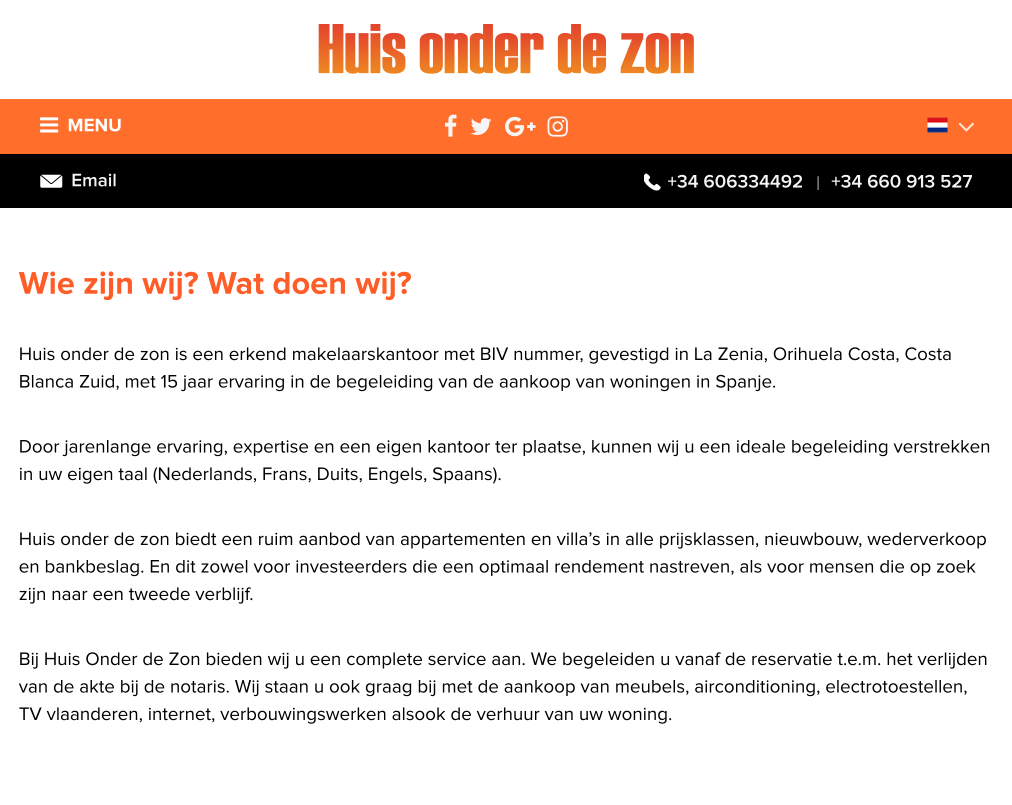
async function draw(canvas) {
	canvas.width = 1012;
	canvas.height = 805;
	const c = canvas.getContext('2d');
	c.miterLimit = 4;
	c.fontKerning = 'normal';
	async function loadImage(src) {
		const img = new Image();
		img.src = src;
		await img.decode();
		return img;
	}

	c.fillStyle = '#fff';
	c.fillRect(0, 0, 1012, 805);
	c.drawImage(await loadImage('img1.png'), 318, 24, 376, 50);
	c.fillStyle = '#ff6e2b';
	c.fillRect(0, 99, 1012, 55);
	c.drawImage(await loadImage('img2.png'), 40, 117, 19, 16);
	c.drawImage(await loadImage('img3.png'), 68, 118, 53, 14);
	c.drawImage(await loadImage('img4.png'), 445, 114, 12, 23);
	c.drawImage(await loadImage('img5.png'), 470, 118, 22, 17);
	c.drawImage(await loadImage('img6.png'), 505, 116, 31, 21);
	c.drawImage(await loadImage('img7.png'), 547, 116, 21, 21);
	c.drawImage(await loadImage('img8.png'), 927, 117, 21, 16);
	c.drawImage(await loadImage('img9.png'), 958, 122, 16, 10);
	c.fillStyle = '#000';
	c.fillRect(0, 154, 1012, 54);
	c.drawImage(await loadImage('img10.png'), 40, 174, 23, 14);
	c.drawImage(await loadImage('img11.png'), 72, 173, 44, 14);
	c.drawImage(await loadImage('img12.png'), 644, 173, 17, 18);
	c.drawImage(await loadImage('img13.png'), 668, 174, 135, 14);
	c.drawImage(await loadImage('img14.png'), 817, 176, 2, 14);
	c.drawImage(await loadImage('img15.png'), 831, 174, 141, 14);
	c.drawImage(await loadImage('img16.png'), 18, 271, 393, 30);
	c.drawImage(await loadImage('img17.png'), 20, 347, 931, 17);
	c.drawImage(await loadImage('img18.png'), 20, 374, 756, 18);
	c.drawImage(await loadImage('img19.png'), 20, 440, 970, 17);
	c.drawImage(await loadImage('img20.png'), 19, 467, 482, 17);
	c.drawImage(await loadImage('img21.png'), 20, 532, 966, 17);
	c.drawImage(await loadImage('img22.png'), 19, 560, 957, 17);
	c.drawImage(await loadImage('img23.png'), 19, 587, 234, 17);
	c.drawImage(await loadImage('img24.png'), 20, 652, 967, 17);
	c.drawImage(await loadImage('img25.png'), 18, 680, 949, 17);
	c.drawImage(await loadImage('img26.png'), 19, 707, 653, 17);
}

draw(document.querySelector('canvas'));
